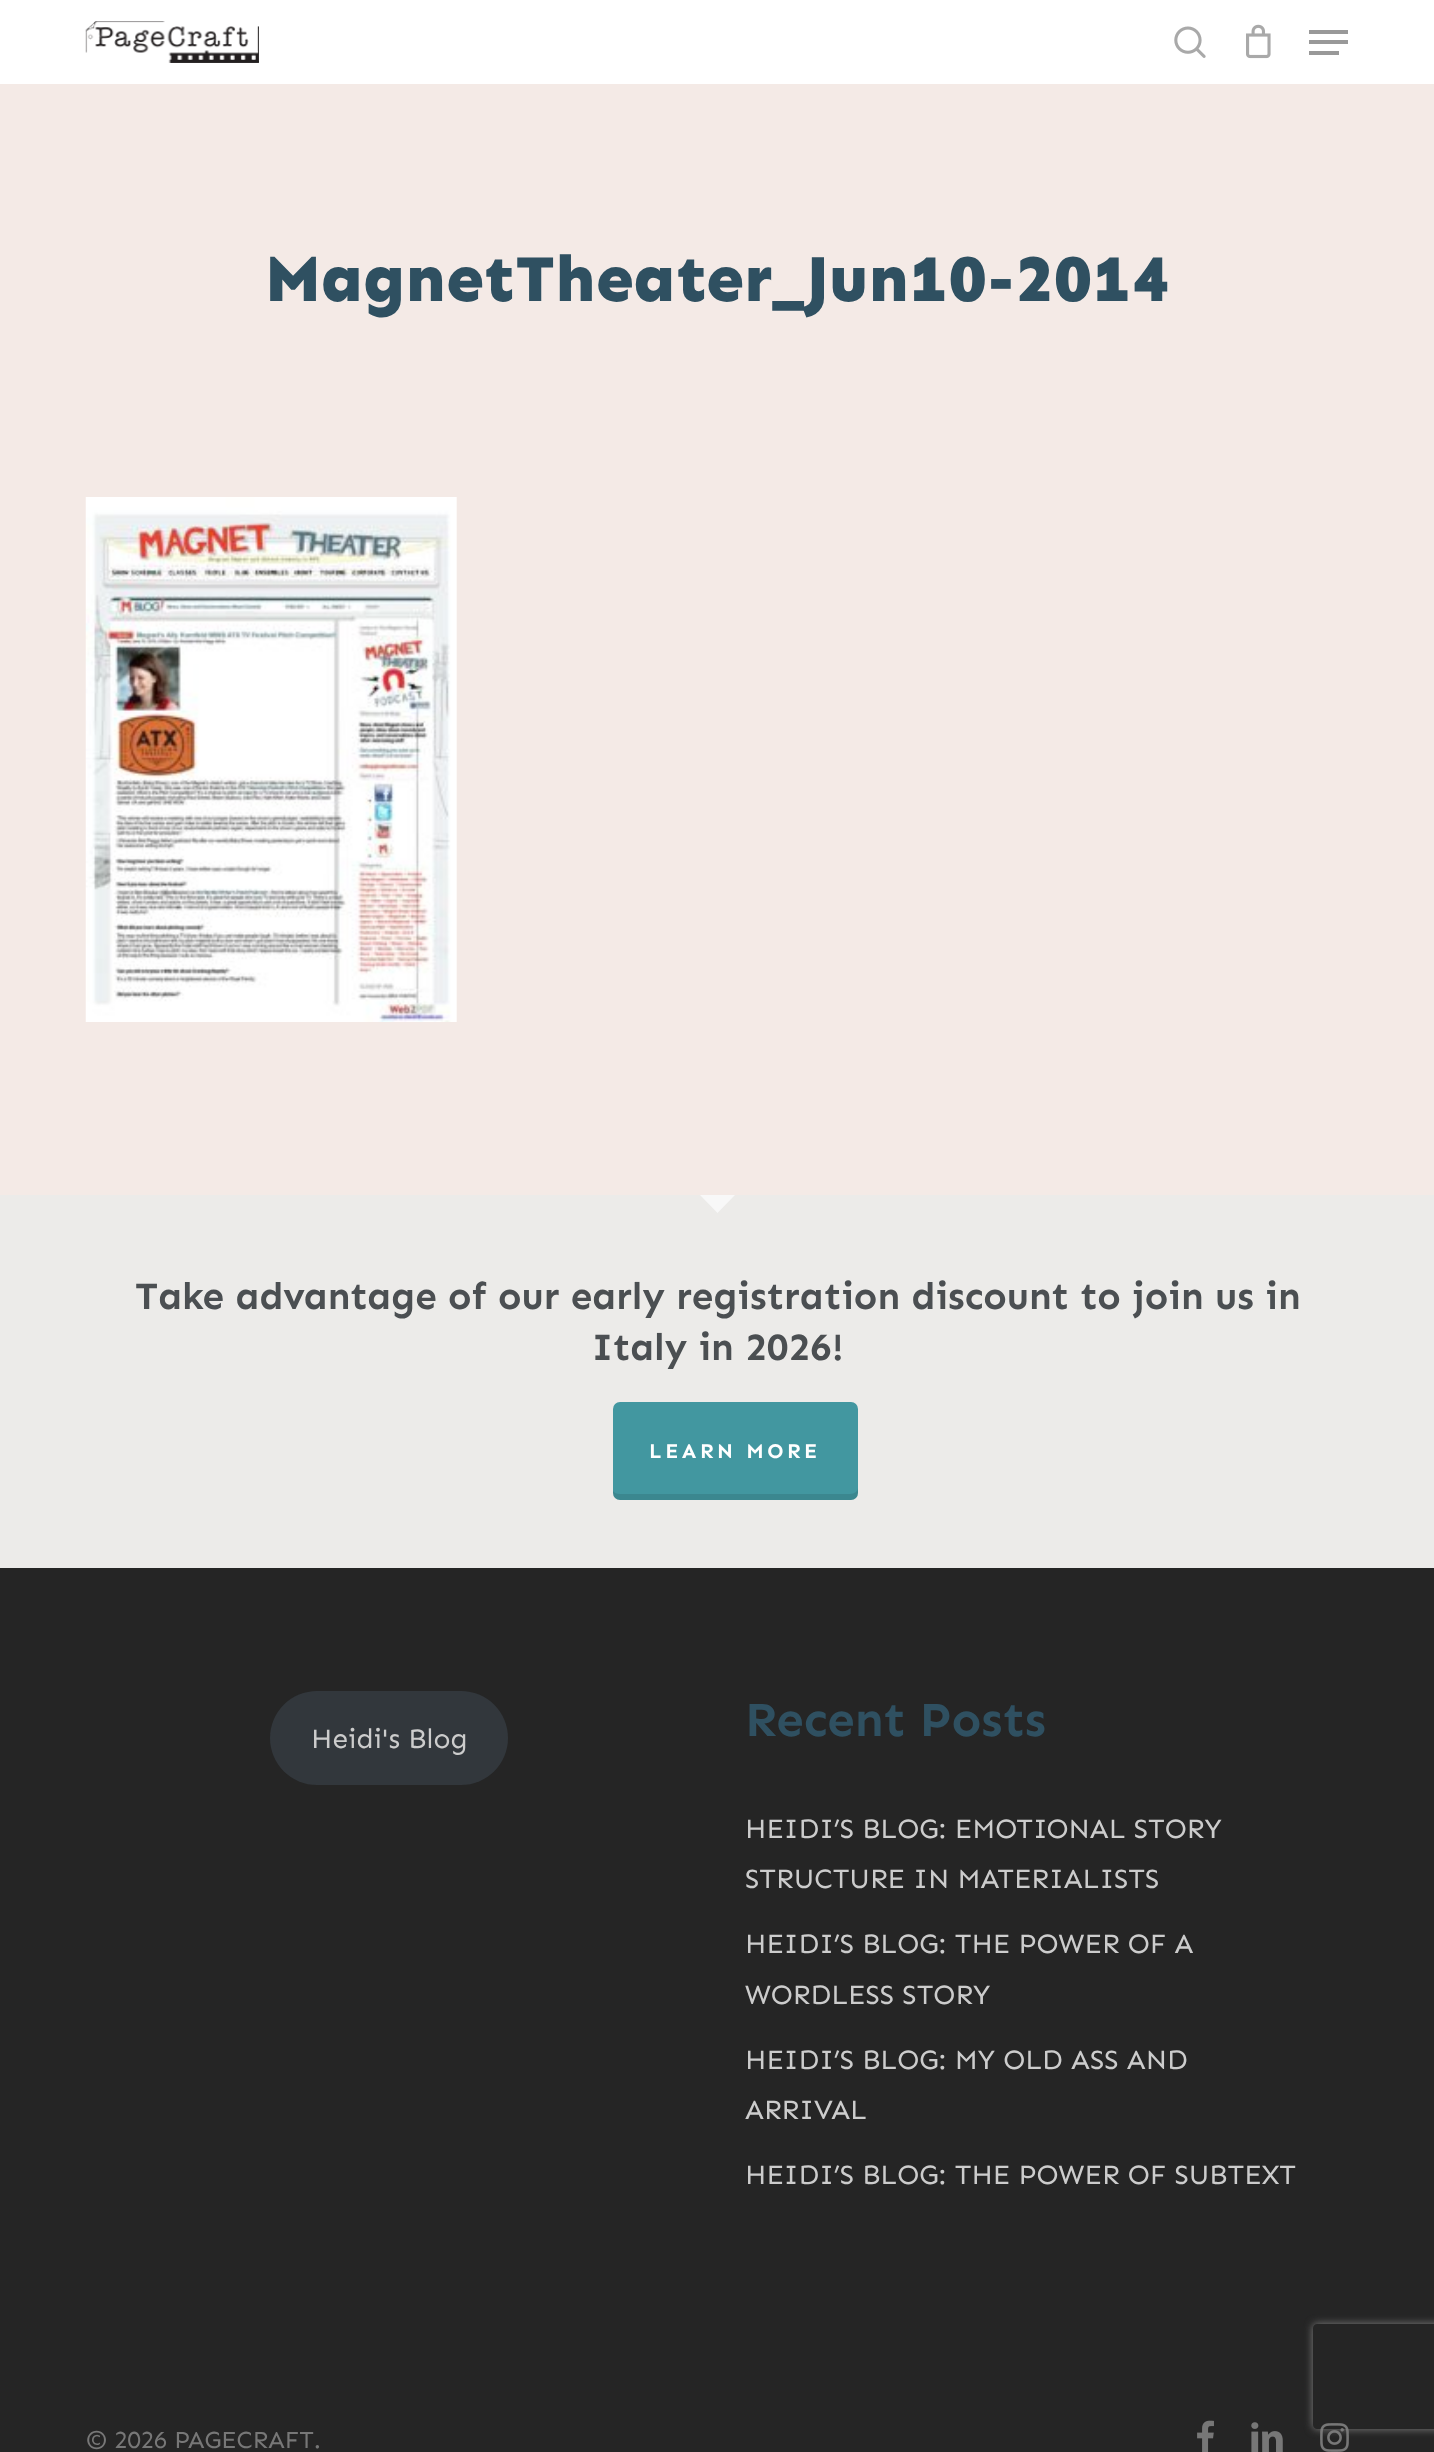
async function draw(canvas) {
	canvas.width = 1434;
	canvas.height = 2452;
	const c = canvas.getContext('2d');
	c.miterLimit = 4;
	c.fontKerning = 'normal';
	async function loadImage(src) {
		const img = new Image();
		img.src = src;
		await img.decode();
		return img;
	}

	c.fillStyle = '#f4eae6';
	c.fillRect(0, 0, 1434, 2452);
	c.fillStyle = '#fff';
	c.fillRect(0, 0, 1434, 84);
	c.drawImage(await loadImage('img1.png'), 85, 21, 174, 42);
	c.drawImage(await loadImage('img2.png'), 1174, 26, 32, 32);
	c.drawImage(await loadImage('img3.png'), 1246, 24, 25, 35);
	for (const [x, y, w, h, color] of [
		[1309, 30, 39, 4, '#999'],
		[1309, 51, 30, 4, '#999'],
		[1309, 40, 39, 4, '#999'],
	]) {
		c.fillStyle = color;
		c.fillRect(x, y, w, h);
	}
	c.font = '800 66.5px Sen';
	c.fillStyle = '#2f5061';
	c.fillText('MagnetTheater_Jun10-2014', 265, 301);
	c.drawImage(await loadImage('img4.png'), 85, 497, 372, 525);
	c.fillStyle = '#252525';
	c.fillRect(0, 1568, 1434, 884);
	c.fillStyle = '#ecebe9';
	c.fillRect(0, 1195, 1434, 373);
	c.fillStyle = '#f8f8f8';
	c.beginPath();
	c.moveTo(700, 1195);
	c.lineTo(735, 1195);
	c.lineTo(717.5, 1213);
	c.closePath();
	c.fill();
	c.font = 'bold 38.5px Sen';
	c.fillStyle = '#4b4f52';
	c.fillText('Take advantage of our early registration discount to join us in', 135, 1309);
	c.fillText('Italy in 2026!', 592, 1360);
	c.fillStyle = '#4297a0';
	c.beginPath();
	c.roundRect(613, 1402, 245, 98, 7);
	c.fill();
	c.fillStyle = '#0000001a';
	c.beginPath();
	c.moveTo(613, 1491);
	c.lineTo(613, 1493);
	c.bezierCurveTo(613, 1497, 616, 1500, 620, 1500);
	c.lineTo(851, 1500);
	c.bezierCurveTo(855, 1500, 858, 1497, 858, 1493);
	c.lineTo(858, 1488);
	c.bezierCurveTo(858, 1491, 854, 1494, 850, 1494);
	c.lineTo(620, 1494);
	c.bezierCurveTo(617, 1494, 614, 1493, 613, 1491);
	c.closePath();
	c.fill();
	c.letterSpacing = '3.5px';
	c.font = 'bold 21px Sen';
	c.fillStyle = '#fff';
	c.fillText('LEARN MORE', 649, 1458);
	c.fillStyle = '#32373c';
	c.beginPath();
	c.roundRect(270, 1691, 238, 94, 47);
	c.fill();
	c.letterSpacing = '0px';
	c.font = '28px Sen';
	c.fillStyle = '#ccc';
	c.fillText('Heidi\'s Blog', 311, 1748);
	c.font = 'bold 49px Sen';
	c.fillStyle = '#2f5061';
	c.fillText('Recent Posts', 745, 1736);
	c.font = '28px Sen';
	c.fillStyle = '#ccc';
	for (const [text, x, y] of [
		['HEIDI’S BLOG: EMOTIONAL STORY', 745, 1838],
		['STRUCTURE IN MATERIALISTS', 745, 1888],
		['HEIDI’S BLOG: THE POWER OF A', 745, 1953],
		['WORDLESS STORY', 745, 2004],
		['HEIDI’S BLOG: MY OLD ASS AND', 745, 2069],
		['ARRIVAL', 745, 2119],
		['HEIDI’S BLOG: THE POWER OF SUBTEXT', 745, 2184],
	]) {
		c.fillText(text, x, y);
	}
	c.font = '24.5px Sen';
	c.fillStyle = '#777';
	c.fillText('© 2026 PAGECRAFT.', 86, 2448);
	c.drawImage(await loadImage('img5.png'), 1197, 2420, 17, 32);
	c.drawImage(await loadImage('img6.png'), 1251, 2422, 32, 30);
	c.drawImage(await loadImage('img7.png'), 1320, 2423, 29, 29);
	c.save();
	c.beginPath();
	c.moveTo(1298, 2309);
	c.lineTo(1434, 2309);
	c.lineTo(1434, 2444);
	c.lineTo(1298, 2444);
	c.closePath();
	c.moveTo(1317, 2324);
	c.lineTo(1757, 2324);
	c.bezierCurveTo(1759, 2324, 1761, 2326, 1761, 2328);
	c.lineTo(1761, 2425);
	c.bezierCurveTo(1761, 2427, 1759, 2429, 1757, 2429);
	c.lineTo(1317, 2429);
	c.bezierCurveTo(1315, 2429, 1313, 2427, 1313, 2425);
	c.lineTo(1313, 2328);
	c.bezierCurveTo(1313, 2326, 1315, 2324, 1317, 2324);
	c.closePath();
	c.clip('evenodd');
	c.fillStyle = '#808080';
	c.filter = 'blur(4.5px)';
	c.beginPath();
	c.roundRect(1313, 2324, 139, 105, 4);
	c.fill();
	c.filter = 'none';
	c.restore();
}

draw(document.querySelector('canvas'));
